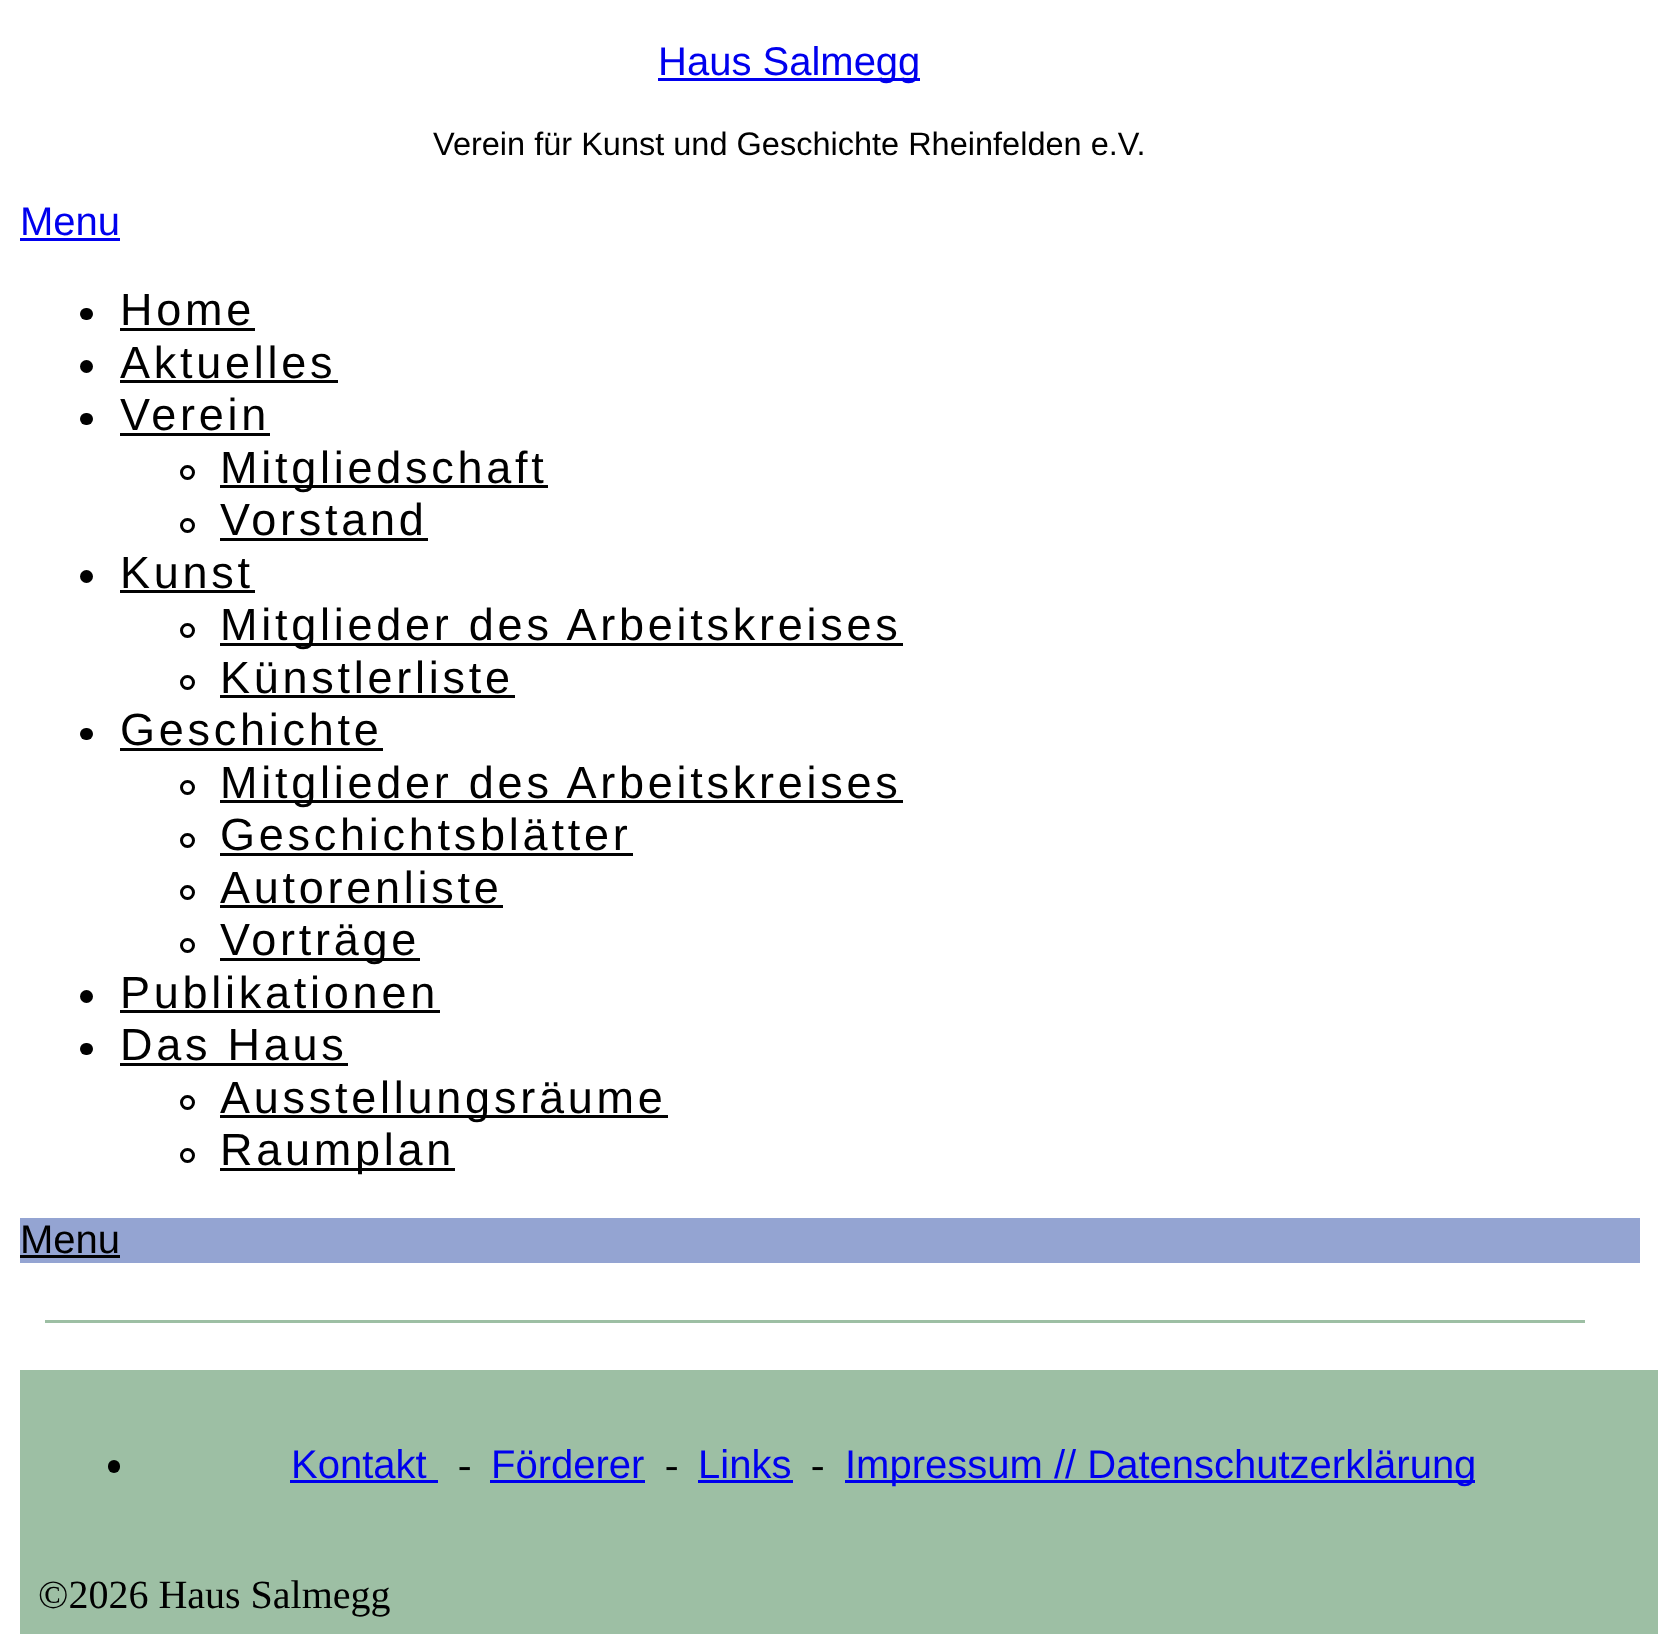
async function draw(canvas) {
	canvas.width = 1658;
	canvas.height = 1634;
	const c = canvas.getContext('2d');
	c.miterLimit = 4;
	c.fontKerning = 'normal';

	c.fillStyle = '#fff';
	c.fillRect(0, 0, 1658, 1634);
	c.fillStyle = '#00e';
	c.fillRect(658, 78, 262, 3);
	c.font = '40px Liberation Sans';
	c.fillText('Haus Salmegg', 658, 75);
	c.font = '32.5px Liberation Sans';
	c.fillStyle = '#000';
	c.fillText('Verein für Kunst und Geschichte Rheinfelden e.V.', 433, 155);
	c.font = '40px Liberation Sans';
	c.fillStyle = '#00e';
	c.fillText('Menu', 20, 235);
	c.fillRect(20, 238, 100, 3);
	c.fillStyle = '#000';
	c.beginPath();
	c.roundRect(80, 308, 13, 12, 6);
	c.fill();
	c.letterSpacing = '3.75px';
	c.font = '45px Liberation Sans';
	c.fillText('Home', 120, 325);
	c.fillStyle = '#020202';
	c.fillRect(120, 328, 135, 3);
	c.fillStyle = '#000';
	c.beginPath();
	c.arc(86.5, 366.5, 6.5, 0, 2 * Math.PI);
	c.fill();
	c.fillText('Aktuelles', 120, 378);
	c.fillStyle = '#020202';
	c.fillRect(120, 380, 218, 3);
	c.fillStyle = '#000';
	c.beginPath();
	c.roundRect(80, 413, 13, 12, 6);
	c.fill();
	c.fillText('Verein', 120, 430);
	c.fillStyle = '#020202';
	c.fillRect(120, 433, 150, 3);
	c.beginPath();
	c.arc(187.5, 472.5, 6, 0, 2 * Math.PI);
	c.strokeStyle = '#000';
	c.lineWidth = 3;
	c.stroke();
	c.fillRect(220, 485, 328, 3);
	c.fillStyle = '#000';
	c.fillText('Mitgliedschaft', 220, 483);
	c.beginPath();
	c.arc(187.5, 525.5, 6, 0, 2 * Math.PI);
	c.stroke();
	c.fillText('Vorstand', 220, 535);
	c.fillStyle = '#020202';
	c.fillRect(220, 538, 208, 3);
	c.fillStyle = '#000';
	c.beginPath();
	c.arc(86.5, 576.5, 6.5, 0, 2 * Math.PI);
	c.fill();
	c.fillText('Kunst', 120, 588);
	c.fillStyle = '#020202';
	c.fillRect(120, 590, 135, 3);
	c.beginPath();
	c.arc(187.5, 630.5, 6, 0, 2 * Math.PI);
	c.stroke();
	c.fillRect(220, 643, 683, 3);
	c.fillStyle = '#000';
	c.fillText('Mitglieder des Arbeitskreises', 220, 640);
	c.beginPath();
	c.arc(187.5, 682.5, 6, 0, 2 * Math.PI);
	c.stroke();
	c.fillText('Künstlerliste', 220, 693);
	c.fillStyle = '#020202';
	c.fillRect(220, 695, 295, 3);
	c.fillStyle = '#000';
	c.beginPath();
	c.roundRect(80, 728, 13, 12, 6);
	c.fill();
	c.fillText('Geschichte', 120, 745);
	c.fillStyle = '#020202';
	c.fillRect(120, 748, 263, 3);
	c.beginPath();
	c.arc(187.5, 787.5, 6, 0, 2 * Math.PI);
	c.stroke();
	c.fillRect(220, 800, 683, 3);
	c.fillStyle = '#000';
	c.fillText('Mitglieder des Arbeitskreises', 220, 798);
	c.beginPath();
	c.arc(187.5, 840.5, 6, 0, 2 * Math.PI);
	c.stroke();
	c.fillText('Geschichtsblätter', 220, 850);
	c.fillStyle = '#020202';
	c.fillRect(220, 853, 413, 3);
	c.beginPath();
	c.arc(187.5, 892.5, 6, 0, 2 * Math.PI);
	c.stroke();
	c.fillStyle = '#000';
	c.fillText('Autorenliste', 220, 903);
	c.fillStyle = '#020202';
	c.fillRect(220, 905, 283, 3);
	c.beginPath();
	c.arc(187.5, 945.5, 6, 0, 2 * Math.PI);
	c.stroke();
	c.fillRect(220, 958, 200, 3);
	c.fillStyle = '#000';
	c.fillText('Vorträge', 220, 955);
	c.beginPath();
	c.arc(86.5, 996.5, 6.5, 0, 2 * Math.PI);
	c.fill();
	c.fillText('Publikationen', 120, 1008);
	c.fillStyle = '#020202';
	c.fillRect(120, 1010, 320, 3);
	c.fillStyle = '#000';
	c.beginPath();
	c.roundRect(80, 1043, 13, 12, 6);
	c.fill();
	c.fillText('Das Haus', 120, 1060);
	c.fillStyle = '#020202';
	c.fillRect(120, 1063, 228, 3);
	c.beginPath();
	c.arc(187.5, 1102.5, 6, 0, 2 * Math.PI);
	c.stroke();
	c.fillRect(220, 1115, 448, 3);
	c.fillStyle = '#000';
	c.fillText('Ausstellungsräume', 220, 1113);
	c.beginPath();
	c.arc(187.5, 1155.5, 6, 0, 2 * Math.PI);
	c.stroke();
	c.fillStyle = '#020202';
	c.fillRect(220, 1168, 235, 3);
	c.fillStyle = '#000';
	c.fillText('Raumplan', 220, 1165);
	c.fillStyle = '#94a4d2';
	c.fillRect(20, 1218, 1620, 45);
	c.letterSpacing = '0px';
	c.font = '40px Liberation Sans';
	c.fillStyle = '#000';
	c.fillText('Menu', 20, 1253);
	for (const [x, y, w, h, color] of [
		[20, 1255, 100, 3, '#020202'],
		[45, 1320, 1540, 3, '#9dbfa4'],
		[20, 1370, 1638, 264, '#9dbfa4'],
	]) {
		c.fillStyle = color;
		c.fillRect(x, y, w, h);
	}
	c.fillStyle = '#000';
	c.beginPath();
	c.roundRect(108, 1460, 12, 13, 6);
	c.fill();
	c.fillStyle = '#00e';
	c.fillText('Kontakt', 291, 1478);
	c.fillRect(290, 1480, 148, 3);
	c.font = '40px Liberation Serif';
	c.fillStyle = '#000';
	c.fillText('-', 458, 1478);
	c.font = '40px Liberation Sans';
	c.fillStyle = '#00e';
	c.fillText('Förderer', 491, 1478);
	c.fillRect(490, 1480, 155, 3);
	c.font = '40px Liberation Serif';
	c.fillStyle = '#000';
	c.fillText('-', 665, 1478);
	c.font = '40px Liberation Sans';
	c.fillStyle = '#00e';
	c.fillText('Links', 698, 1478);
	c.fillRect(698, 1480, 95, 3);
	c.font = '40px Liberation Serif';
	c.fillStyle = '#000';
	c.fillText('-', 811, 1478);
	c.fillStyle = '#00e';
	c.fillRect(845, 1480, 630, 3);
	c.font = '40px Liberation Sans';
	c.fillText('Impressum // Datenschutzerklärung', 845, 1478);
	c.font = '40px Liberation Serif';
	c.fillStyle = '#000';
	c.fillText('©2026 Haus Salmegg', 38, 1608);
}

draw(document.querySelector('canvas'));
